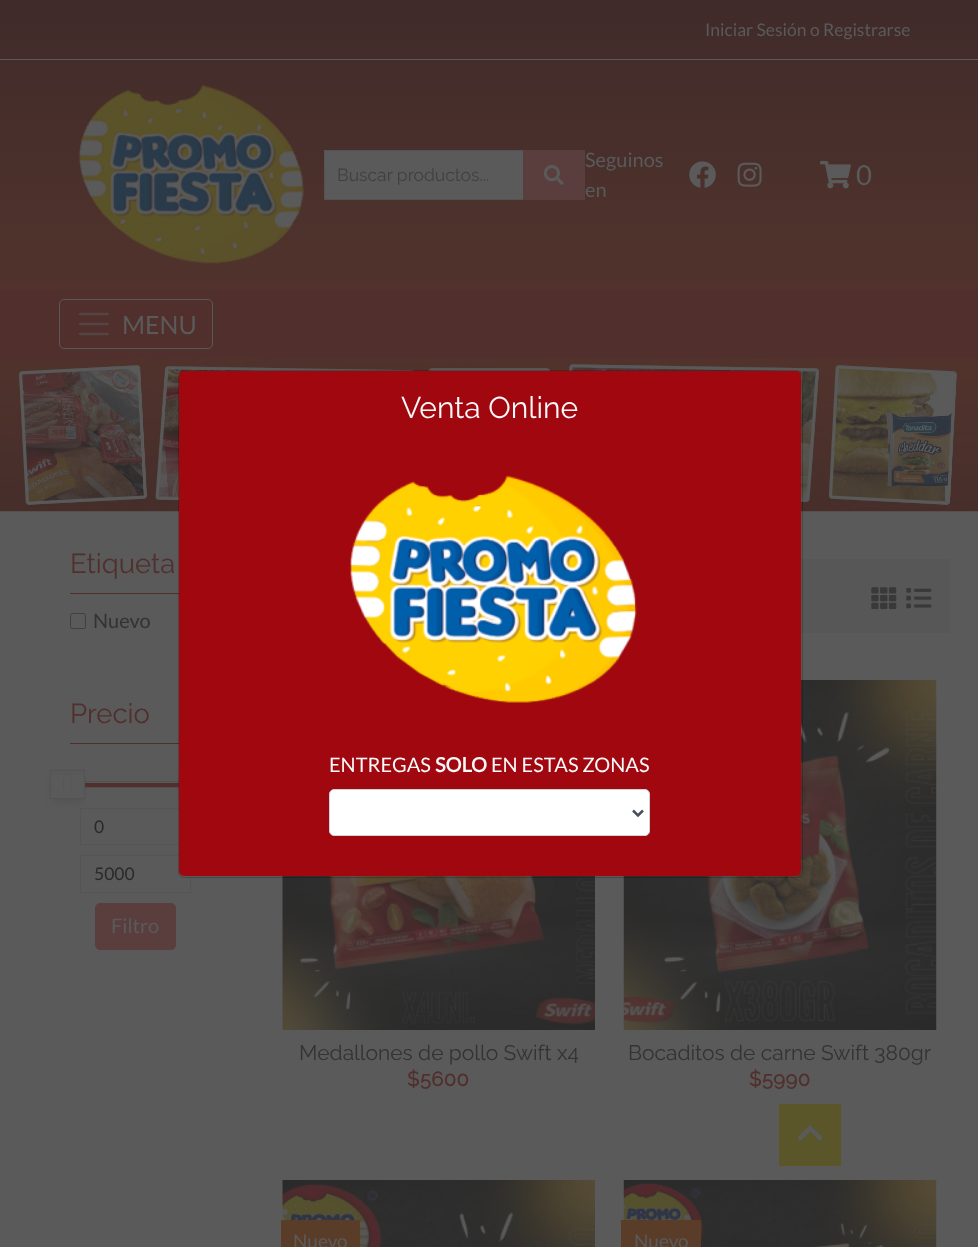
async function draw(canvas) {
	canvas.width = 978;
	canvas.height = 1247;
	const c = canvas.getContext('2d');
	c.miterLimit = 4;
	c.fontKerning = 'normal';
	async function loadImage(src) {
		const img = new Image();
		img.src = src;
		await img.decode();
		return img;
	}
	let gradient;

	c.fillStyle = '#5a5a5a';
	c.fillRect(0, 0, 978, 1247);
	gradient = c.createLinearGradient(489, 289, 489, 0);
	gradient.addColorStop(0, '#51332c');
	gradient.addColorStop(1, '#402b2a');
	c.fillStyle = gradient;
	c.fillRect(0, 0, 978, 289);
	c.fillStyle = '#5a5a5a';
	c.fillRect(0, 59, 978, 1);
	c.font = '17.5px Lato';
	c.fillText('Iniciar Sesión o Registrarse', 705, 36);
	c.drawImage(await loadImage('img1.png'), 78, 85, 226, 179);
	c.fillRect(325, 151, 198, 48);
	c.strokeStyle = '#535353';
	c.strokeRect(324.5, 150.5, 260, 49);
	c.font = '100 17.5px Raleway';
	c.fillStyle = '#404040';
	c.fillText('Buscar productos...', 337, 181);
	c.fillStyle = '#5a3d3d';
	c.fillRect(523, 150, 62, 50);
	c.drawImage(await loadImage('img2.png'), 543, 165, 21, 20);
	c.font = '20px Lato';
	c.fillStyle = '#5a5a5a';
	c.fillText('Seguinos', 585, 167);
	c.drawImage(await loadImage('img3.png'), 689, 161, 27, 27);
	c.drawImage(await loadImage('img4.png'), 737, 162, 25, 25);
	c.fillText('en', 585, 197);
	c.drawImage(await loadImage('img5.png'), 820, 160, 31, 29);
	c.font = '27.5px Lato';
	c.fillText('0', 856, 185);
	c.fillStyle = '#512f2c';
	c.fillRect(0, 289, 978, 70);
	c.beginPath();
	c.roundRect(59.5, 299.5, 153, 49, 4.5);
	c.strokeStyle = '#595959';
	c.stroke();
	c.beginPath();
	c.moveTo(80, 314);
	c.lineTo(107.5, 314);
	c.moveTo(80, 324);
	c.lineTo(107.5, 324);
	c.moveTo(80, 334);
	c.lineTo(107.5, 334);
	c.strokeStyle = '#554443';
	c.lineWidth = 2.5;
	c.lineCap = 'round';
	c.stroke();
	c.font = '25px Lato';
	c.fillStyle = '#5a5a5a';
	c.fillText('MENU', 122, 334);
	c.drawImage(await loadImage('img7.png'), 0, 358, 978, 154);
	c.strokeStyle = '#515151';
	c.lineWidth = 1;
	c.strokeRect(70.5, 781.5, 130, 6);
	c.fillStyle = '#512f2c';
	c.fillRect(85, 783, 94, 4);
	c.strokeStyle = '#555';
	c.strokeRect(80.5, 808.5, 110, 36);
	c.fillStyle = '#4d4d4d';
	c.filter = 'blur(4px)';
	c.beginPath();
	c.rect(183, 778, 27, 21);
	c.fill();
	c.filter = 'none';
	c.strokeRect(80.5, 855.5, 110, 37);
	c.drawImage(await loadImage('img11.png'), 623, 680, 314, 350);
	c.fillStyle = '#a0070f';
	c.beginPath();
	c.roundRect(179, 371, 622, 505, 5);
	c.fill();
	for (const [x, y, w, h, color] of [
		[70, 593, 109, 1, '#512f2c'],
		[70, 743, 109, 1, '#512f2c'],
		[801, 559, 149, 74, '#575757'],
	]) {
		c.fillStyle = color;
		c.fillRect(x, y, w, h);
	}
	c.drawImage(await loadImage('img10.png'), 282, 876, 313, 154);
	c.beginPath();
	c.roundRect(178.5, 370.5, 624, 507, 5.5);
	c.strokeStyle = '#00000033';
	c.stroke();
	c.font = '100 30px Raleway';
	c.fillStyle = '#f8f9fa';
	c.fillText('Venta Online', 401, 418);
	c.drawImage(await loadImage('img6.png'), 350, 475, 287, 228);
	c.font = '20px Lato';
	c.fillText('ENTREGAS', 329, 772);
	c.font = 'bold 20px Lato';
	c.fillText('SOLO', 435, 772);
	c.font = '20px Lato';
	c.fillText('EN ESTAS ZONAS', 491, 772);
	c.fillStyle = '#fff';
	c.beginPath();
	c.roundRect(329.5, 789.5, 320, 46, 4.5);
	c.fill();
	c.strokeStyle = '#ced4da';
	c.stroke();
	c.beginPath();
	c.moveTo(633, 810.5);
	c.lineTo(638, 815.5);
	c.lineTo(643, 810.5);
	c.strokeStyle = '#495057';
	c.lineWidth = 2.5;
	c.lineCap = 'butt';
	c.stroke();
	c.font = '100 27.5px Raleway';
	c.fillStyle = '#512f2c';
	c.fillText('Etiqueta', 70, 573);
	c.beginPath();
	c.roundRect(70.5, 613.5, 15, 15, 2);
	c.strokeStyle = '#404040';
	c.lineWidth = 1;
	c.stroke();
	c.font = '20px Lato';
	c.fillStyle = '#333';
	c.fillText('Nuevo', 93, 628);
	c.font = '100 27.5px Raleway';
	c.fillStyle = '#512f2c';
	c.fillText('Precio', 70, 723);
	c.fillStyle = '#4d4d4d';
	c.filter = 'blur(4px)';
	c.beginPath();
	c.rect(54, 778, 27, 21);
	c.fill();
	c.filter = 'none';
	c.fillStyle = '#5a5a5a';
	c.fillRect(51, 775, 33, 23);
	c.strokeStyle = '#535353';
	c.strokeRect(50.5, 770.5, 34, 28);
	c.fillStyle = '#555';
	c.fillRect(63, 778, 1, 12);
	c.fillRect(70, 778, 1, 12);
	c.font = '17.5px Lato';
	c.fillStyle = '#292929';
	c.fillText('0', 94, 833);
	c.fillText('5000', 94, 880);
	c.fillStyle = '#5a3d3d';
	c.beginPath();
	c.roundRect(95.5, 903.5, 80, 46, 4.5);
	c.fill();
	c.strokeStyle = '#5a3d3d';
	c.stroke();
	c.font = '20px Lato';
	c.fillStyle = '#5a5a5a';
	c.fillText('Filtro', 111, 933);
	c.drawImage(await loadImage('img8.png'), 871, 587, 26, 23);
	c.drawImage(await loadImage('img9.png'), 906, 588, 26, 21);
	c.font = '100 21px Raleway';
	c.fillStyle = '#333';
	c.fillText('Medallones de pollo Swift x4', 299, 1060);
	c.letterSpacing = '0.5px';
	c.font = 'bold 20px Raleway';
	c.fillStyle = '#512f2c';
	c.fillText('$5600', 407, 1086);
	c.letterSpacing = '0px';
	c.font = '100 21px Raleway';
	c.fillStyle = '#333';
	c.fillText('Bocaditos de carne Swift 380gr', 628, 1060);
	c.letterSpacing = '0.5px';
	c.font = 'bold 20px Raleway';
	c.fillStyle = '#512f2c';
	c.fillText('$5990', 749, 1086);
	c.drawImage(await loadImage('img12.png'), 282, 1180, 313, 67);
	c.fillStyle = '#5a3d29';
	c.fillRect(281, 1220, 79, 27);
	c.letterSpacing = '0px';
	c.font = '19px Lato';
	c.fillStyle = '#5a5a5a';
	c.fillText('Nuevo', 293, 1248);
	c.drawImage(await loadImage('img13.png'), 623, 1180, 314, 67);
	c.fillStyle = '#5a3d29';
	c.fillRect(621, 1220, 80, 27);
	c.fillStyle = '#5a5a5a';
	c.fillText('Nuevo', 634, 1248);
	c.fillStyle = '#5a5629';
	c.fillRect(779, 1104, 62, 62);
	c.drawImage(await loadImage('img14.png'), 797, 1125, 26, 16);
}

draw(document.querySelector('canvas'));
